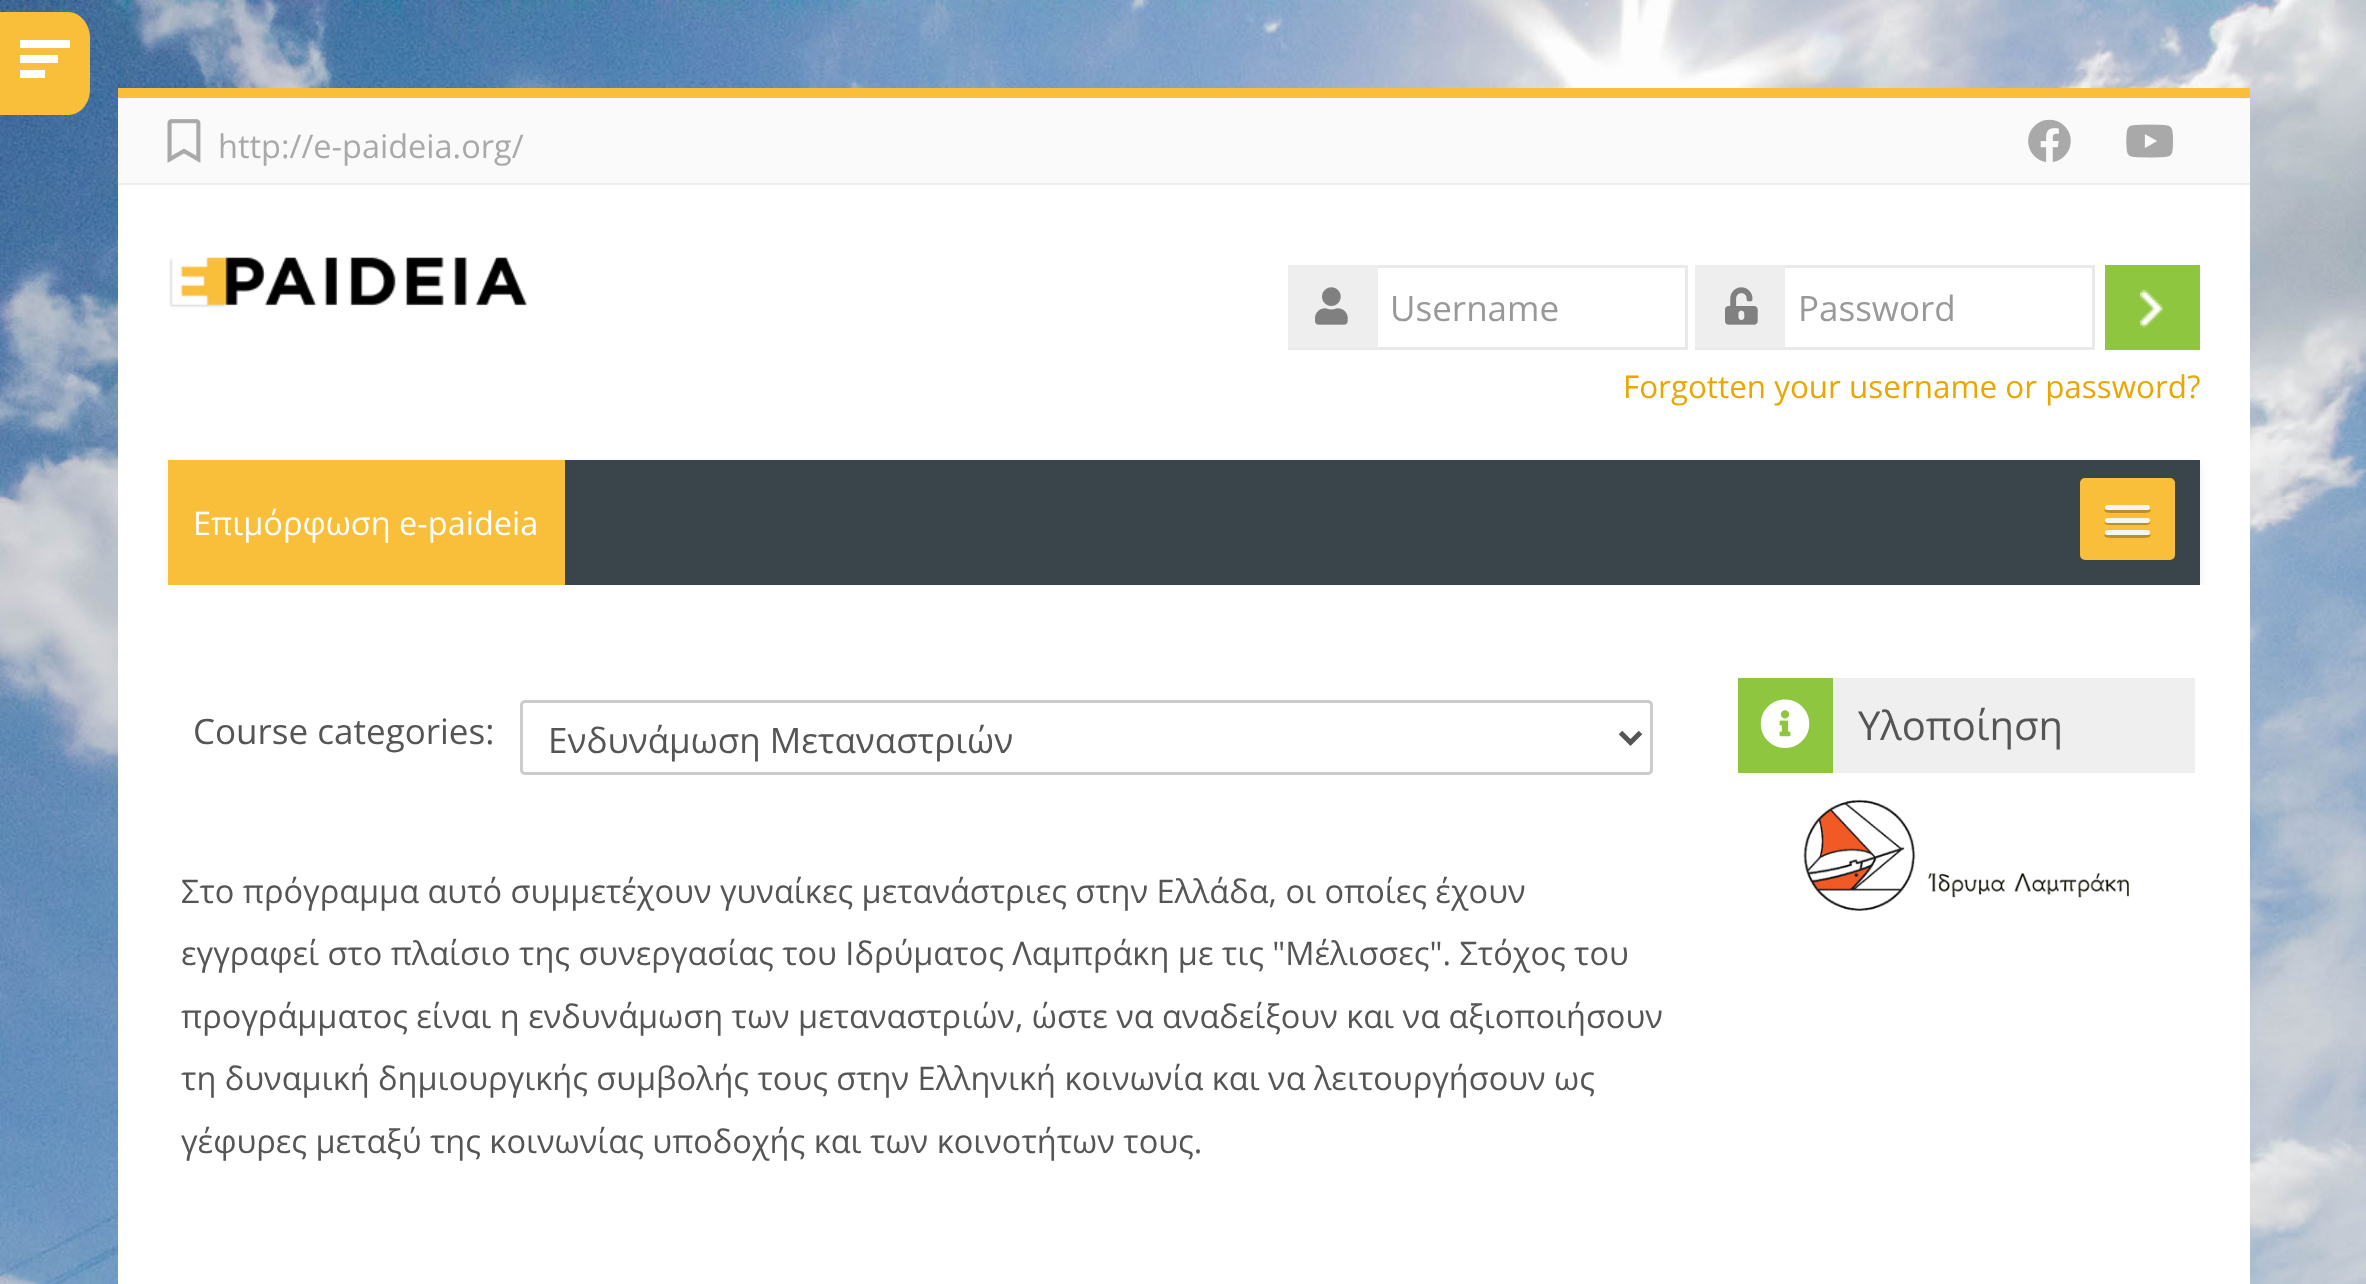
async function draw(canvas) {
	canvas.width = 2366;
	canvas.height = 1284;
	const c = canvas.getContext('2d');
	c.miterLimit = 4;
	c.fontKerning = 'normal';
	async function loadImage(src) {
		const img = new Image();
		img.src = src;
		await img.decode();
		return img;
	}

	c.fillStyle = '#fff';
	c.fillRect(0, 0, 2366, 1284);
	c.drawImage(await loadImage('img1.png'), 0, 0, 2366, 1284);
	c.fillStyle = '#f9bf3b';
	c.beginPath();
	c.moveTo(0, 12);
	c.lineTo(68, 12);
	c.bezierCurveTo(80, 12, 90, 24, 90, 38);
	c.lineTo(90, 89);
	c.bezierCurveTo(90, 104, 80, 115, 68, 115);
	c.lineTo(0, 115);
	c.closePath();
	c.fill();
	for (const [x, y, w, h, color] of [
		[20, 40, 50, 8, '#fff'],
		[20, 55, 38, 8, '#fff'],
		[20, 70, 25, 8, '#fff'],
		[118, 88, 2132, 10, '#f9bf3b'],
		[118, 98, 2132, 87, '#fafafa'],
		[118, 183, 2132, 2, '#0000000d'],
	]) {
		c.fillStyle = color;
		c.fillRect(x, y, w, h);
	}
	c.drawImage(await loadImage('img2.png'), 167, 119, 34, 44);
	c.font = '32.5px Open Sans';
	c.fillStyle = '#a9a9a9';
	c.fillText('http://e-paideia.org/', 218, 158);
	c.drawImage(await loadImage('img3.png'), 2028, 119, 43, 43);
	c.drawImage(await loadImage('img4.png'), 2126, 124, 48, 34);
	c.fillStyle = '#fff';
	c.fillRect(118, 185, 2132, 400);
	c.drawImage(await loadImage('img5.png'), 169, 257, 358, 51);
	c.strokeStyle = '#e9e9e9';
	c.lineWidth = 3;
	c.strokeRect(1289.5, 266.5, 397, 82);
	c.fillStyle = '#eee';
	c.fillRect(1288, 265, 90, 83);
	c.drawImage(await loadImage('img6.png'), 1315, 287, 33, 38);
	c.font = '35px Open Sans';
	c.fillStyle = '#999';
	c.fillText('Username', 1390, 321);
	c.strokeRect(1696.5, 266.5, 397, 82);
	c.fillStyle = '#eee';
	c.fillRect(1695, 265, 90, 83);
	c.drawImage(await loadImage('img7.png'), 1725, 287, 33, 38);
	c.fillStyle = '#999';
	c.fillText('Password', 1798, 321);
	c.fillStyle = '#8ec63f';
	c.fillRect(2105, 265, 95, 85);
	c.drawImage(await loadImage('img8.png'), 2140, 290, 23, 38);
	c.font = '31.4px Open Sans';
	c.fillStyle = '#eba600';
	c.fillText('Forgotten your username or password?', 1623, 398);
	c.fillStyle = '#00000012';
	c.filter = 'blur(5px)';
	c.beginPath();
	c.rect(168, 463, 2032, 125);
	c.fill();
	c.filter = 'none';
	c.fillStyle = '#3a454b';
	c.fillRect(565, 460, 1635, 125);
	c.fillStyle = '#f9bf3b';
	c.fillRect(168, 460, 397, 125);
	c.font = '32.5px Open Sans';
	c.fillStyle = '#fff';
	c.fillText('Επιμόρφωση e-paideia', 193, 535);
	c.fillStyle = '#f9bf3b';
	c.beginPath();
	c.roundRect(2080, 478, 95, 82, 5);
	c.fill();
	c.fillStyle = '#bb8f2c';
	c.beginPath();
	c.moveTo(2105, 509);
	c.bezierCurveTo(2102, 513, 2110, 513, 2114, 513);
	c.lineTo(2141, 513);
	c.bezierCurveTo(2145, 513, 2153, 513, 2150, 509);
	c.lineTo(2148, 510);
	c.lineTo(2107, 510);
	c.closePath();
	c.fill();
	c.fillStyle = '#f5f5f5';
	c.beginPath();
	c.roundRect(2105, 505, 45, 5, 2.5);
	c.fill();
	c.fillStyle = '#bb8f2c';
	c.beginPath();
	c.moveTo(2105, 521);
	c.bezierCurveTo(2102, 526, 2114, 525, 2114, 525);
	c.lineTo(2141, 525);
	c.bezierCurveTo(2141, 525, 2153, 526, 2150, 521);
	c.bezierCurveTo(2149, 522, 2148, 522, 2148, 522);
	c.lineTo(2108, 522);
	c.bezierCurveTo(2107, 522, 2106, 522, 2105, 521);
	c.closePath();
	c.fill();
	c.fillStyle = '#f5f5f5';
	c.beginPath();
	c.roundRect(2105, 518, 45, 5, 2.5);
	c.fill();
	c.fillStyle = '#bb8f2c';
	c.beginPath();
	c.moveTo(2105, 534);
	c.bezierCurveTo(2102, 538, 2110, 538, 2114, 538);
	c.lineTo(2141, 538);
	c.bezierCurveTo(2145, 538, 2153, 538, 2150, 534);
	c.lineTo(2148, 535);
	c.lineTo(2107, 535);
	c.closePath();
	c.fill();
	c.fillStyle = '#f5f5f5';
	c.beginPath();
	c.roundRect(2105, 530, 45, 5, 2.5);
	c.fill();
	c.fillStyle = '#fff';
	c.fillRect(118, 585, 2132, 699);
	c.font = '35px Open Sans';
	c.fillStyle = '#555';
	c.fillText('Course categories:', 193, 744);
	c.beginPath();
	c.roundRect(521.5, 701.5, 1130, 72, 3.5);
	c.strokeStyle = '#ccc';
	c.stroke();
	c.beginPath();
	c.moveTo(1620.5, 732.5);
	c.lineTo(1630.5, 742.5);
	c.lineTo(1640.5, 732.5);
	c.strokeStyle = '#555';
	c.lineWidth = 5;
	c.stroke();
	c.fillText('Ενδυνάμωση Μεταναστριών', 548, 753);
	c.font = '32.5px Open Sans';
	for (const [text, x, y] of [
		['Στο πρόγραμμα αυτό συμμετέχουν γυναίκες μετανάστριες στην Ελλάδα, οι οποίες έχουν', 181, 903],
		['εγγραφεί στο πλαίσιο της συνεργασίας του Ιδρύματος Λαμπράκη με τις "Μέλισσες". Στόχος του', 181, 965],
		['προγράμματος είναι η ενδυνάμωση των μεταναστριών, ώστε να αναδείξουν και να αξιοποιήσουν', 181, 1028],
		['τη δυναμική δημιουργικής συμβολής τους στην Ελληνική κοινωνία και να λειτουργήσουν ως', 181, 1090],
		['γέφυρες μεταξύ της κοινωνίας υποδοχής και των κοινοτήτων τους.', 181, 1153],
	]) {
		c.fillText(text, x, y);
	}
	c.fillStyle = '#efefef';
	c.fillRect(1833, 678, 362, 95);
	c.fillStyle = '#8ec63f';
	c.fillRect(1738, 678, 95, 95);
	c.drawImage(await loadImage('img9.png'), 1760, 699, 50, 49);
	c.font = '40px Open Sans';
	c.fillStyle = '#555';
	c.fillText('Υλοποίηση', 1858, 740);
	c.drawImage(await loadImage('img10.png'), 1803, 799, 326, 114);
}

draw(document.querySelector('canvas'));
